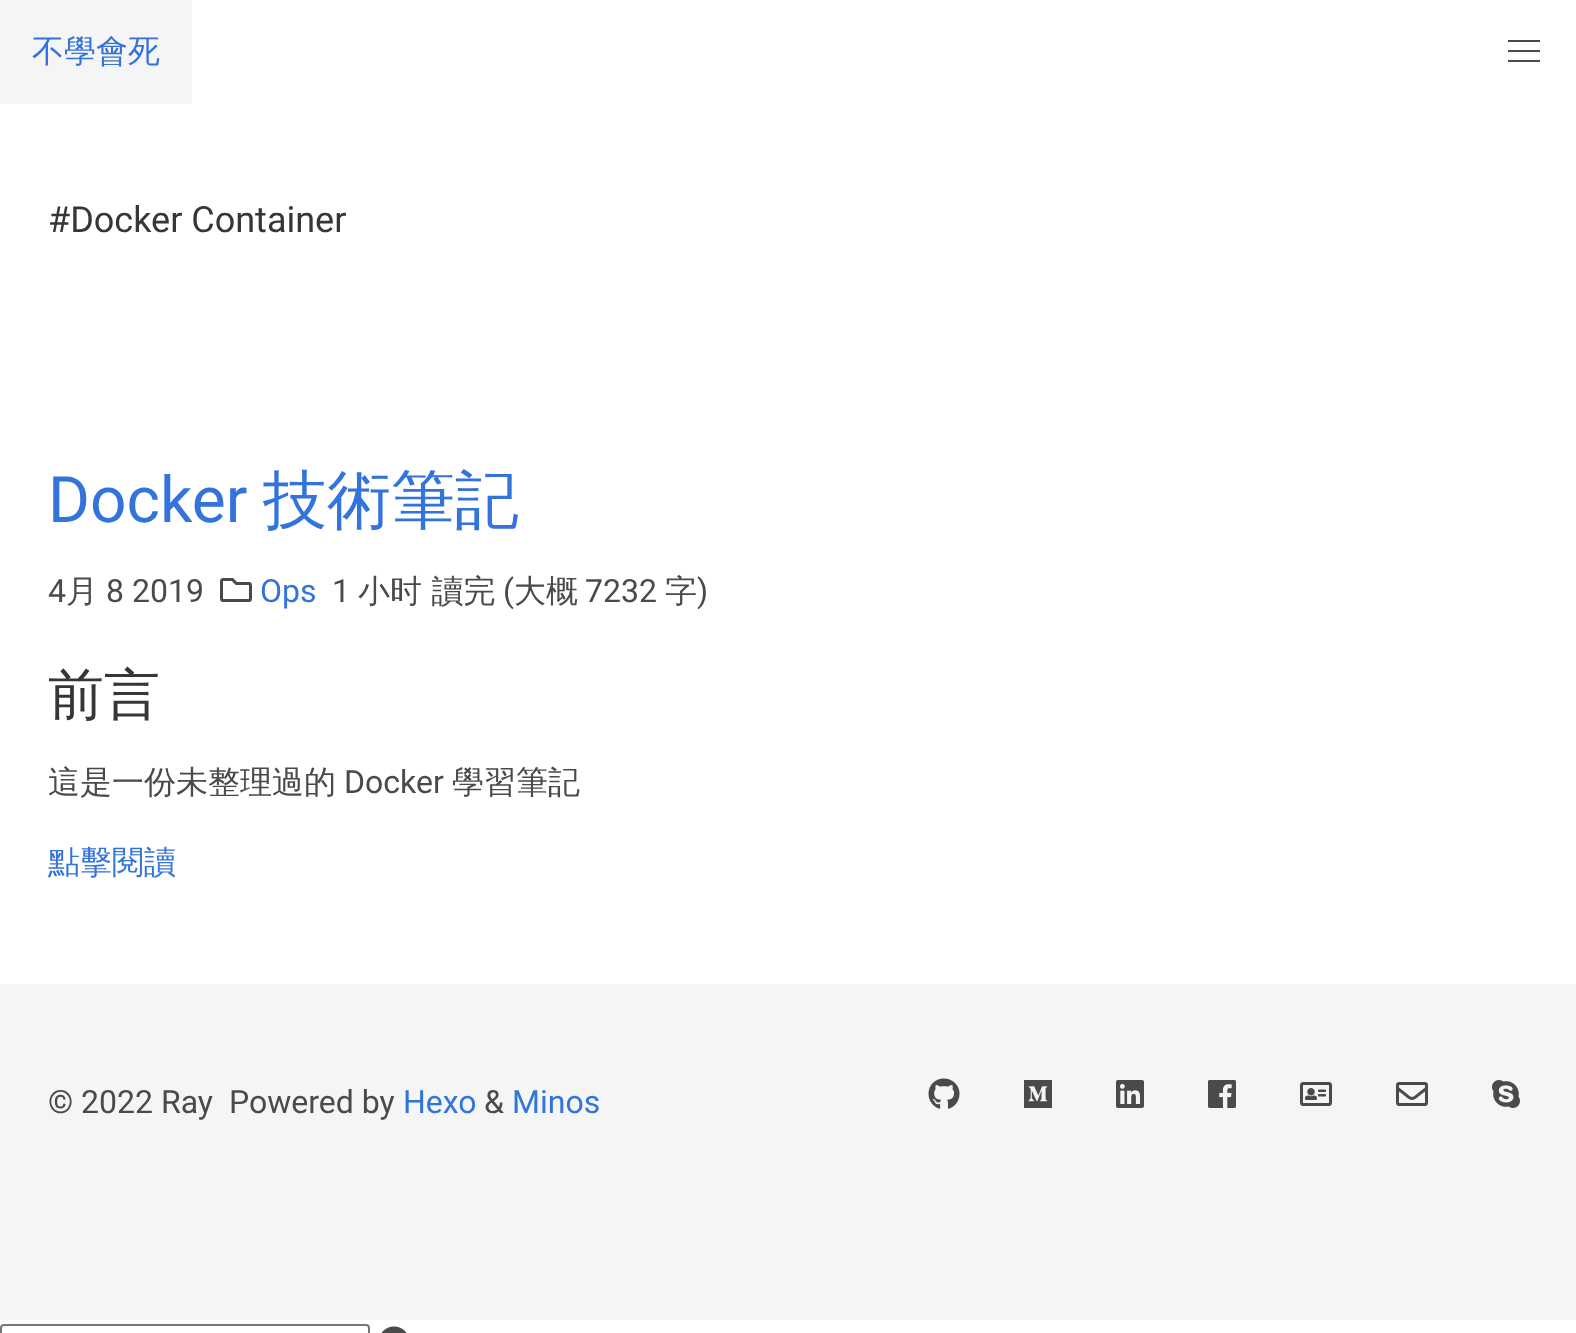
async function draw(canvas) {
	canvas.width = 1576;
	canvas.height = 1333;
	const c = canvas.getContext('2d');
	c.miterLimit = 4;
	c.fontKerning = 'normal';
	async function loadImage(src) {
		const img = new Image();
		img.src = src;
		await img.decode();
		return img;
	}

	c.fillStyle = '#fff';
	c.fillRect(0, 0, 1576, 1333);
	c.fillStyle = '#f5f5f5';
	c.fillRect(0, 0, 192, 104);
	c.font = '500 32px WenQuanYi Zen Hei';
	c.fillStyle = '#3273dc';
	c.fillText('不學會死', 32, 62);
	for (const [x, y, w, h, color] of [
		[1508, 40, 32, 2, '#4a4a4a'],
		[1508, 50, 32, 2, '#4a4a4a'],
		[1508, 60, 32, 2, '#4a4a4a'],
	]) {
		c.fillStyle = color;
		c.fillRect(x, y, w, h);
	}
	c.font = '36px Roboto';
	c.fillStyle = '#363636';
	c.fillText('#Docker Container', 48, 232);
	c.font = '64px Roboto';
	c.fillStyle = '#3273dc';
	c.fillText('Docker', 48, 522);
	c.font = '500 64px WenQuanYi Zen Hei';
	c.fillText('技術筆記', 263, 522);
	c.font = '32px Roboto';
	c.fillStyle = '#4a4a4a';
	c.fillText('4', 48, 602);
	c.font = '500 32px WenQuanYi Zen Hei';
	c.fillText('月', 66, 602);
	c.font = '32px Roboto';
	c.fillText('8 2019', 106, 602);
	c.drawImage(await loadImage('img1.png'), 220, 578, 32, 24);
	c.fillStyle = '#3273dc';
	c.fillText('Ops', 260, 602);
	c.fillStyle = '#4a4a4a';
	c.fillText('1', 332, 602);
	c.font = '500 32px WenQuanYi Zen Hei';
	c.fillText('小时 讀完', 358, 602);
	c.font = '32px Roboto';
	c.fillText('(', 503, 602);
	c.font = '500 32px WenQuanYi Zen Hei';
	c.fillText('大概', 514, 602);
	c.font = '32px Roboto';
	c.fillText('7232', 585, 602);
	c.font = '500 32px WenQuanYi Zen Hei';
	c.fillText('字', 665, 602);
	c.font = '32px Roboto';
	c.fillText(')', 697, 602);
	c.font = '500 56px WenQuanYi Zen Hei';
	c.fillStyle = '#363636';
	c.fillText('前言', 48, 714);
	c.font = '500 32px WenQuanYi Zen Hei';
	c.fillStyle = '#4a4a4a';
	c.fillText('這是一份未整理過的', 48, 793);
	c.font = '32px Roboto';
	c.fillText('Docker', 344, 793);
	c.font = '500 32px WenQuanYi Zen Hei';
	c.fillText('學習筆記', 452, 793);
	c.fillStyle = '#3273dc';
	c.fillText('點擊閱讀', 48, 873);
	c.fillStyle = '#f5f5f5';
	c.fillRect(0, 984, 1576, 336);
	c.font = '32px Roboto';
	c.fillStyle = '#4a4a4a';
	c.fillText('© 2022 Ray', 48, 1113);
	c.fillText('Powered by', 229, 1113);
	c.fillStyle = '#3273dc';
	c.fillText('Hexo', 403, 1113);
	c.fillStyle = '#4a4a4a';
	c.fillText('&', 484, 1113);
	c.fillStyle = '#3273dc';
	c.fillText('Minos', 512, 1113);
	c.drawImage(await loadImage('img2.png'), 928, 1078, 32, 31);
	c.drawImage(await loadImage('img3.png'), 1024, 1080, 28, 28);
	c.drawImage(await loadImage('img4.png'), 1116, 1080, 28, 28);
	c.drawImage(await loadImage('img5.png'), 1208, 1080, 28, 28);
	c.drawImage(await loadImage('img6.png'), 1300, 1082, 32, 24);
	c.drawImage(await loadImage('img7.png'), 1396, 1082, 32, 24);
	c.drawImage(await loadImage('img8.png'), 1492, 1080, 28, 28);
	c.beginPath();
	c.roundRect(1, 1325, 368, 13, 3);
	c.strokeStyle = '#767676';
	c.lineWidth = 2;
	c.stroke();
	c.drawImage(await loadImage('img9.png'), 381, 1326, 26, 7);
}

draw(document.querySelector('canvas'));
